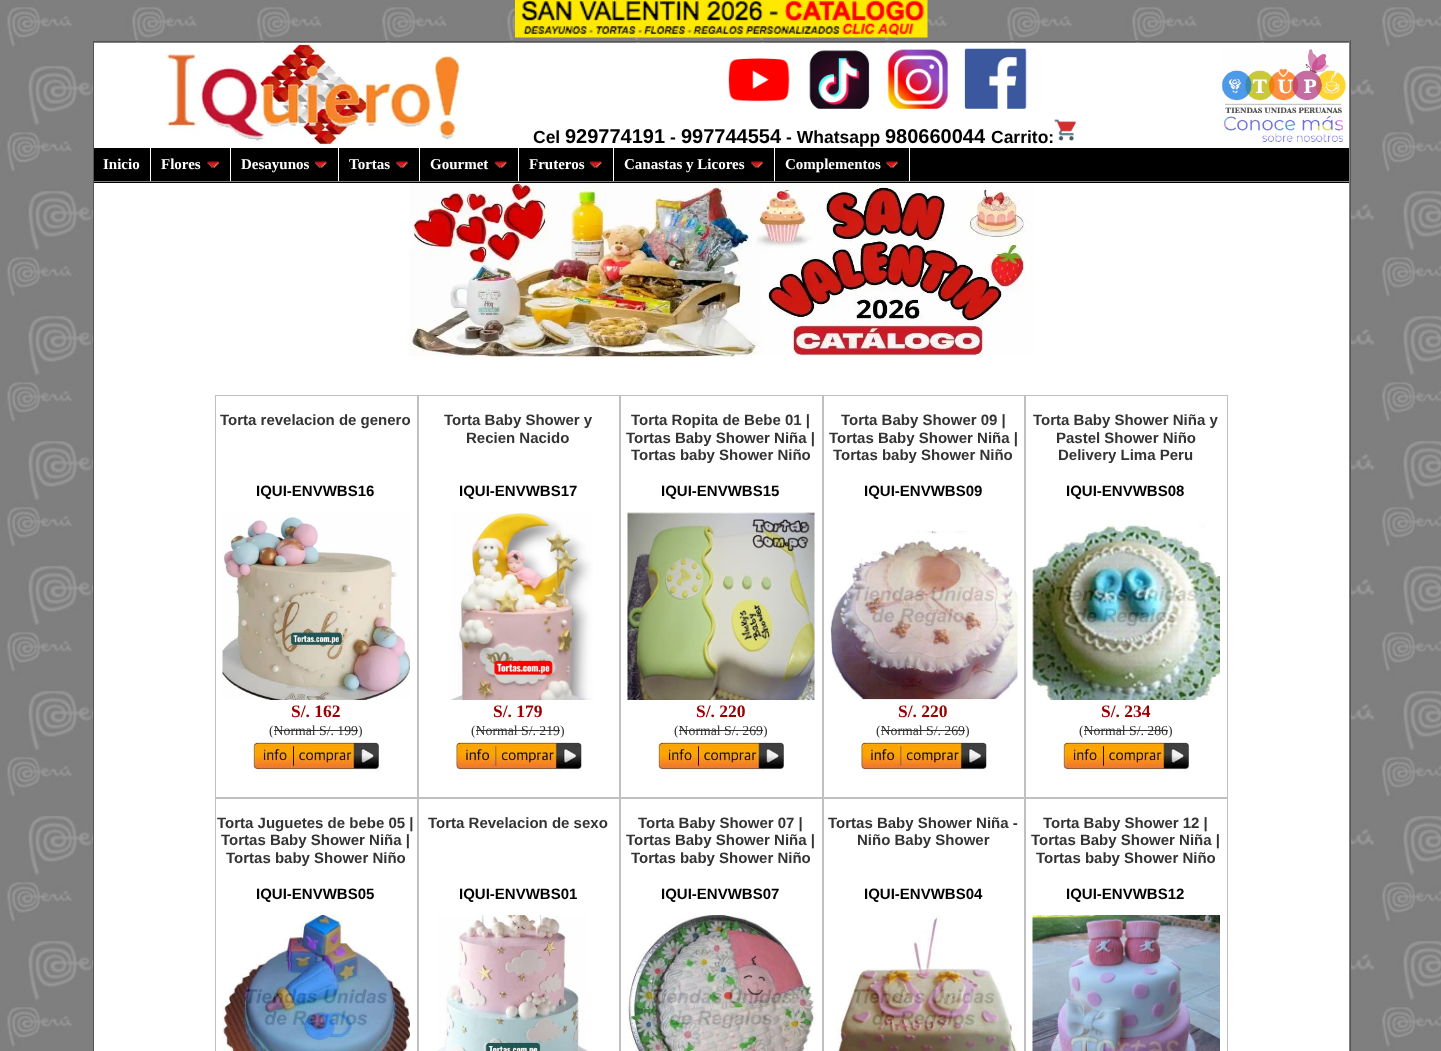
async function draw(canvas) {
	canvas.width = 1441;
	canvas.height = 1051;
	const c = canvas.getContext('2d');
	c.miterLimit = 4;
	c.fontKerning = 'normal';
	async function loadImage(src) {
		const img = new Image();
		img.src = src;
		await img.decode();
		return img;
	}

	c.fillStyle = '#fff';
	c.fillRect(0, 0, 1441, 1051);
	c.drawImage(await loadImage('img1.png'), 0, 0, 1441, 1051);
	c.drawImage(await loadImage('img2.png'), 515, 0, 413, 38);
	for (const [x, y, w, h, color] of [
		[135, 40, 1131, 1, '#808080'],
		[1350, 40, 1, 1011, '#555'],
		[91, 86, 1, 883, '#808080'],
		[93, 41, 1257, 1, '#555'],
		[1349, 41, 1, 931, '#808080'],
		[93, 41, 1, 1010, '#555'],
		[94, 43, 1255, 105, '#fff'],
	]) {
		c.fillStyle = color;
		c.fillRect(x, y, w, h);
	}
	c.drawImage(await loadImage('img3.png'), 166, 43, 296, 101);
	c.drawImage(await loadImage('img4.png'), 728, 48, 299, 61);
	c.drawImage(await loadImage('img5.png'), 1222, 49, 124, 93);
	c.font = 'bold 17.5px Liberation Sans';
	c.fillStyle = '#000';
	c.fillText('Cel', 533, 143);
	c.font = 'bold 20px Liberation Sans';
	c.fillText('929774191', 565, 143);
	c.font = 'bold 17.5px Liberation Sans';
	c.fillText('-', 670, 143);
	c.font = 'bold 20px Liberation Sans';
	c.fillText('997744554', 681, 143);
	c.font = 'bold 17.5px Liberation Sans';
	c.fillText('- Whatsapp', 786, 143);
	c.font = 'bold 20px Liberation Sans';
	c.fillText('980660044', 885, 143);
	c.font = 'bold 17.5px Liberation Sans';
	c.fillText('Carrito:', 991, 143);
	c.drawImage(await loadImage('img6.png'), 1054, 119, 22, 22);
	for (const [x, y, w, h, color] of [
		[94, 148, 1255, 35, '#000'],
		[94, 181, 1255, 1, '#808080'],
		[150, 148, 1, 33, '#fff'],
	]) {
		c.fillStyle = color;
		c.fillRect(x, y, w, h);
	}
	c.font = 'bold 15px Liberation Serif';
	c.fillText('Inicio', 103, 169);
	c.fillRect(230, 148, 1, 33);
	c.fillText('Flores', 161, 169);
	c.drawImage(await loadImage('img7.png'), 207, 161, 12, 7);
	c.fillRect(338, 148, 1, 33);
	c.fillText('Desayunos', 241, 169);
	c.drawImage(await loadImage('img8.png'), 314, 161, 13, 7);
	c.fillRect(419, 148, 1, 33);
	c.fillText('Tortas', 349, 169);
	c.drawImage(await loadImage('img9.png'), 396, 161, 12, 7);
	c.fillRect(518, 148, 1, 33);
	c.fillText('Gourmet', 430, 169);
	c.drawImage(await loadImage('img8.png'), 494, 161, 13, 7);
	c.fillRect(613, 148, 1, 33);
	c.fillText('Fruteros', 529, 169);
	c.drawImage(await loadImage('img8.png'), 589, 161, 13, 7);
	c.fillRect(774, 148, 1, 33);
	c.fillText('Canastas y Licores', 624, 169);
	c.drawImage(await loadImage('img10.png'), 751, 161, 12, 7);
	c.fillRect(909, 148, 1, 33);
	c.fillText('Complementos', 785, 169);
	c.drawImage(await loadImage('img9.png'), 886, 161, 12, 7);
	c.fillRect(94, 183, 1255, 868);
	c.drawImage(await loadImage('img11.png'), 408, 183, 626, 174);
	c.strokeStyle = '#c0c0c0';
	c.strokeRect(215.5, 395.5, 202, 402);
	c.font = 'bold 15px Liberation Sans';
	c.fillStyle = '#333';
	c.fillText('Torta revelacion de genero', 220, 425);
	c.fillStyle = '#000';
	c.fillText('IQUI-ENVWBS16', 256, 496);
	c.drawImage(await loadImage('img12.png'), 222, 513, 188, 187);
	c.font = 'bold 17.5px Liberation Serif';
	c.fillStyle = '#900';
	c.fillText('S/. 162', 291, 717);
	c.font = '13.75px Liberation Serif';
	c.fillStyle = '#333';
	c.fillText('(Normal S/. 199)', 269, 735);
	c.fillRect(274, 730, 84, 1);
	c.drawImage(await loadImage('img13.png'), 253, 737, 126, 38);
	c.strokeRect(418.5, 395.5, 201, 402);
	c.font = 'bold 15px Liberation Sans';
	c.fillText('Torta Baby Shower y', 444, 425);
	c.fillText('Recien Nacido', 466, 443);
	c.fillStyle = '#000';
	c.fillText('IQUI-ENVWBS17', 459, 496);
	c.drawImage(await loadImage('img14.png'), 450, 512, 143, 188);
	c.font = 'bold 17.5px Liberation Serif';
	c.fillStyle = '#900';
	c.fillText('S/. 179', 493, 717);
	c.font = '13.75px Liberation Serif';
	c.fillStyle = '#333';
	c.fillText('(Normal S/. 219)', 471, 735);
	c.fillRect(476, 730, 84, 1);
	c.drawImage(await loadImage('img15.png'), 456, 737, 126, 38);
	c.strokeRect(620.5, 395.5, 202, 402);
	c.font = 'bold 15px Liberation Sans';
	for (const [text, x, y] of [
		['Torta Ropita de Bebe 01 |', 631, 425],
		['Tortas Baby Shower Niña |', 626, 443],
		['Tortas baby Shower Niño', 631, 460],
	]) {
		c.fillText(text, x, y);
	}
	c.fillStyle = '#000';
	c.fillText('IQUI-ENVWBS15', 661, 496);
	c.drawImage(await loadImage('img16.png'), 627, 512, 188, 188);
	c.font = 'bold 17.5px Liberation Serif';
	c.fillStyle = '#900';
	c.fillText('S/. 220', 696, 717);
	c.font = '13.75px Liberation Serif';
	c.fillStyle = '#333';
	c.fillText('(Normal S/. 269)', 674, 735);
	c.fillRect(679, 730, 84, 1);
	c.drawImage(await loadImage('img13.png'), 658, 737, 126, 38);
	c.strokeRect(823.5, 395.5, 201, 402);
	c.font = 'bold 15px Liberation Sans';
	for (const [text, x, y] of [
		['Torta Baby Shower 09 |', 841, 425],
		['Tortas Baby Shower Niña |', 829, 443],
		['Tortas baby Shower Niño', 833, 460],
	]) {
		c.fillText(text, x, y);
	}
	c.fillStyle = '#000';
	c.fillText('IQUI-ENVWBS09', 864, 496);
	c.drawImage(await loadImage('img17.png'), 830, 531, 188, 169);
	c.font = 'bold 17.5px Liberation Serif';
	c.fillStyle = '#900';
	c.fillText('S/. 220', 898, 717);
	c.font = '13.75px Liberation Serif';
	c.fillStyle = '#333';
	c.fillText('(Normal S/. 269)', 876, 735);
	c.fillRect(881, 730, 84, 1);
	c.drawImage(await loadImage('img15.png'), 861, 737, 126, 38);
	c.strokeRect(1025.5, 395.5, 202, 402);
	c.font = 'bold 15px Liberation Sans';
	for (const [text, x, y] of [
		['Torta Baby Shower Niña y', 1033, 425],
		['Pastel Shower Niño', 1056, 443],
		['Delivery Lima Peru', 1058, 460],
	]) {
		c.fillText(text, x, y);
	}
	c.fillStyle = '#000';
	c.fillText('IQUI-ENVWBS08', 1066, 496);
	c.drawImage(await loadImage('img18.png'), 1032, 520, 188, 180);
	c.font = 'bold 17.5px Liberation Serif';
	c.fillStyle = '#900';
	c.fillText('S/. 234', 1101, 717);
	c.font = '13.75px Liberation Serif';
	c.fillStyle = '#333';
	c.fillText('(Normal S/. 286)', 1079, 735);
	c.fillRect(1084, 730, 84, 1);
	c.drawImage(await loadImage('img19.png'), 1063, 737, 126, 38);
	c.strokeRect(215.5, 798.5, 202, 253);
	c.font = 'bold 15px Liberation Sans';
	for (const [text, x, y] of [
		['Torta Juguetes de bebe 05 |', 217, 828],
		['Tortas Baby Shower Niña |', 221, 845],
		['Tortas baby Shower Niño', 226, 863],
	]) {
		c.fillText(text, x, y);
	}
	c.fillStyle = '#000';
	c.fillText('IQUI-ENVWBS05', 256, 899);
	c.drawImage(await loadImage('img20.png'), 222, 915, 188, 136);
	c.strokeRect(418.5, 798.5, 201, 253);
	c.fillStyle = '#333';
	c.fillText('Torta Revelacion de sexo', 428, 828);
	c.fillStyle = '#000';
	c.fillText('IQUI-ENVWBS01', 459, 899);
	c.drawImage(await loadImage('img21.png'), 437, 915, 151, 136);
	c.strokeRect(620.5, 798.5, 202, 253);
	c.fillStyle = '#333';
	for (const [text, x, y] of [
		['Torta Baby Shower 07 |', 638, 828],
		['Tortas Baby Shower Niña |', 626, 845],
		['Tortas baby Shower Niño', 631, 863],
	]) {
		c.fillText(text, x, y);
	}
	c.fillStyle = '#000';
	c.fillText('IQUI-ENVWBS07', 661, 899);
	c.drawImage(await loadImage('img22.png'), 627, 915, 188, 136);
	c.strokeRect(823.5, 798.5, 201, 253);
	c.fillStyle = '#333';
	c.fillText('Tortas Baby Shower Niña -', 828, 828);
	c.fillText('Niño Baby Shower', 857, 845);
	c.fillStyle = '#000';
	c.fillText('IQUI-ENVWBS04', 864, 899);
	c.drawImage(await loadImage('img23.png'), 837, 915, 181, 136);
	c.strokeRect(1025.5, 798.5, 202, 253);
	c.fillStyle = '#333';
	for (const [text, x, y] of [
		['Torta Baby Shower 12 |', 1043, 828],
		['Tortas Baby Shower Niña |', 1031, 845],
		['Tortas baby Shower Niño', 1036, 863],
	]) {
		c.fillText(text, x, y);
	}
	c.fillStyle = '#000';
	c.fillText('IQUI-ENVWBS12', 1066, 899);
	c.drawImage(await loadImage('img24.png'), 1032, 915, 188, 136);
}

draw(document.querySelector('canvas'));
